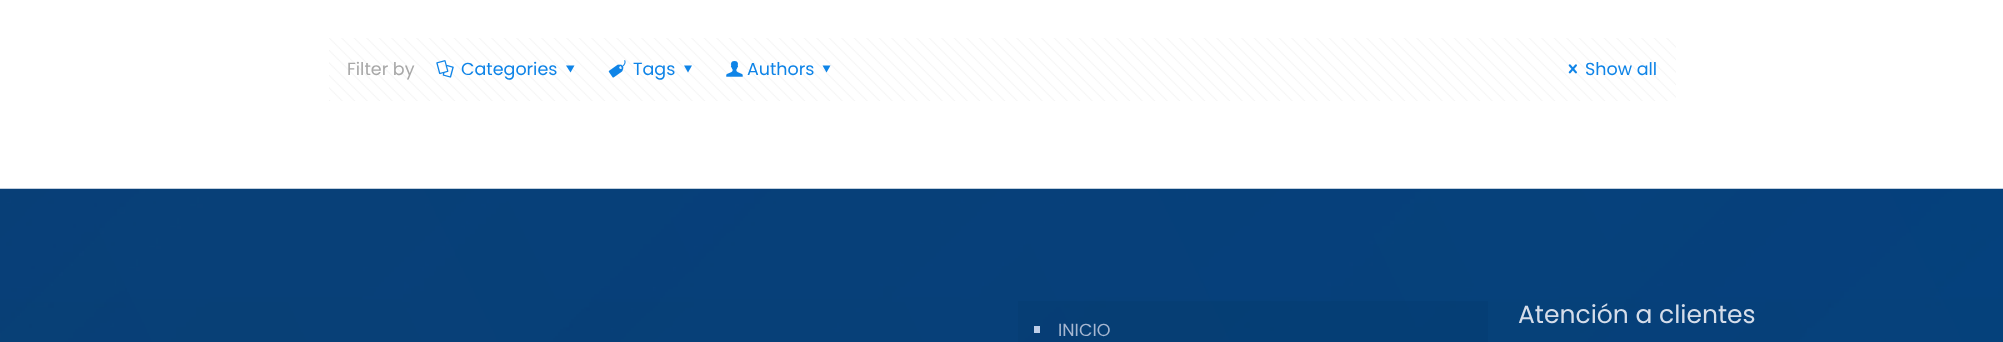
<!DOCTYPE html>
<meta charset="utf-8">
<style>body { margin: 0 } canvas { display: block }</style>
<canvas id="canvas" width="2003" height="342"></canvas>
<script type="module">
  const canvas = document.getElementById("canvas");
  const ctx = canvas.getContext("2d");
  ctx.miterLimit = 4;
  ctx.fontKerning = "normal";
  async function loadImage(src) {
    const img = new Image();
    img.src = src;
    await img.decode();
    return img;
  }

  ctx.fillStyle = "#ffffff";
  ctx.fillRect(0, 0, 2003, 342);
  ctx.drawImage(await loadImage("img1.png"), 329, 38, 1347, 63);
  ctx.font = "17.5px Poppins";
  ctx.fillStyle = "#a8a8a8";
  ctx.fillText("Filter by", 347, 75);
  ctx.drawImage(await loadImage("img2.png"), 436, 60, 18, 18);
  ctx.fillStyle = "#0f84e7";
  ctx.fillText("Categories", 461, 75);
  ctx.beginPath();
  ctx.moveTo(574.5, 65.5);
  ctx.lineTo(570.5, 72.5);
  ctx.lineTo(566, 65.5);
  ctx.closePath();
  ctx.fill();
  ctx.drawImage(await loadImage("img3.png"), 608, 60, 18, 18);
  ctx.fillText("Tags", 633, 75);
  ctx.beginPath();
  ctx.moveTo(692, 65.5);
  ctx.lineTo(688, 72.5);
  ctx.lineTo(684, 65.5);
  ctx.closePath();
  ctx.fill();
  ctx.drawImage(await loadImage("img4.png"), 726, 61, 17, 16);
  ctx.fillText("Authors", 747, 75);
  ctx.beginPath();
  ctx.moveTo(830.5, 65.5);
  ctx.lineTo(826.5, 72.5);
  ctx.lineTo(822.5, 65.5);
  ctx.closePath();
  ctx.fill();
  ctx.drawImage(await loadImage("img5.png"), 1568, 64, 9, 10);
  ctx.fillText("Show all", 1585, 75);
  ctx.drawImage(await loadImage("img6.png"), 0, 188, 2003, 154);
  ctx.font = "25px Poppins";
  ctx.fillStyle = "#d5ddea";
  ctx.fillText("Atención a clientes", 1518, 323);
  ctx.fillStyle = "rgba(0, 0, 0, 0.03)";
  ctx.fillRect(1018, 301, 470, 41);
  ctx.fillStyle = "#becee8";
  ctx.fillRect(1034, 326, 6, 7);
  ctx.font = "17.5px Poppins";
  ctx.fillStyle = "#a6b7d1";
  ctx.fillText("INICIO", 1058, 336);
</script>
